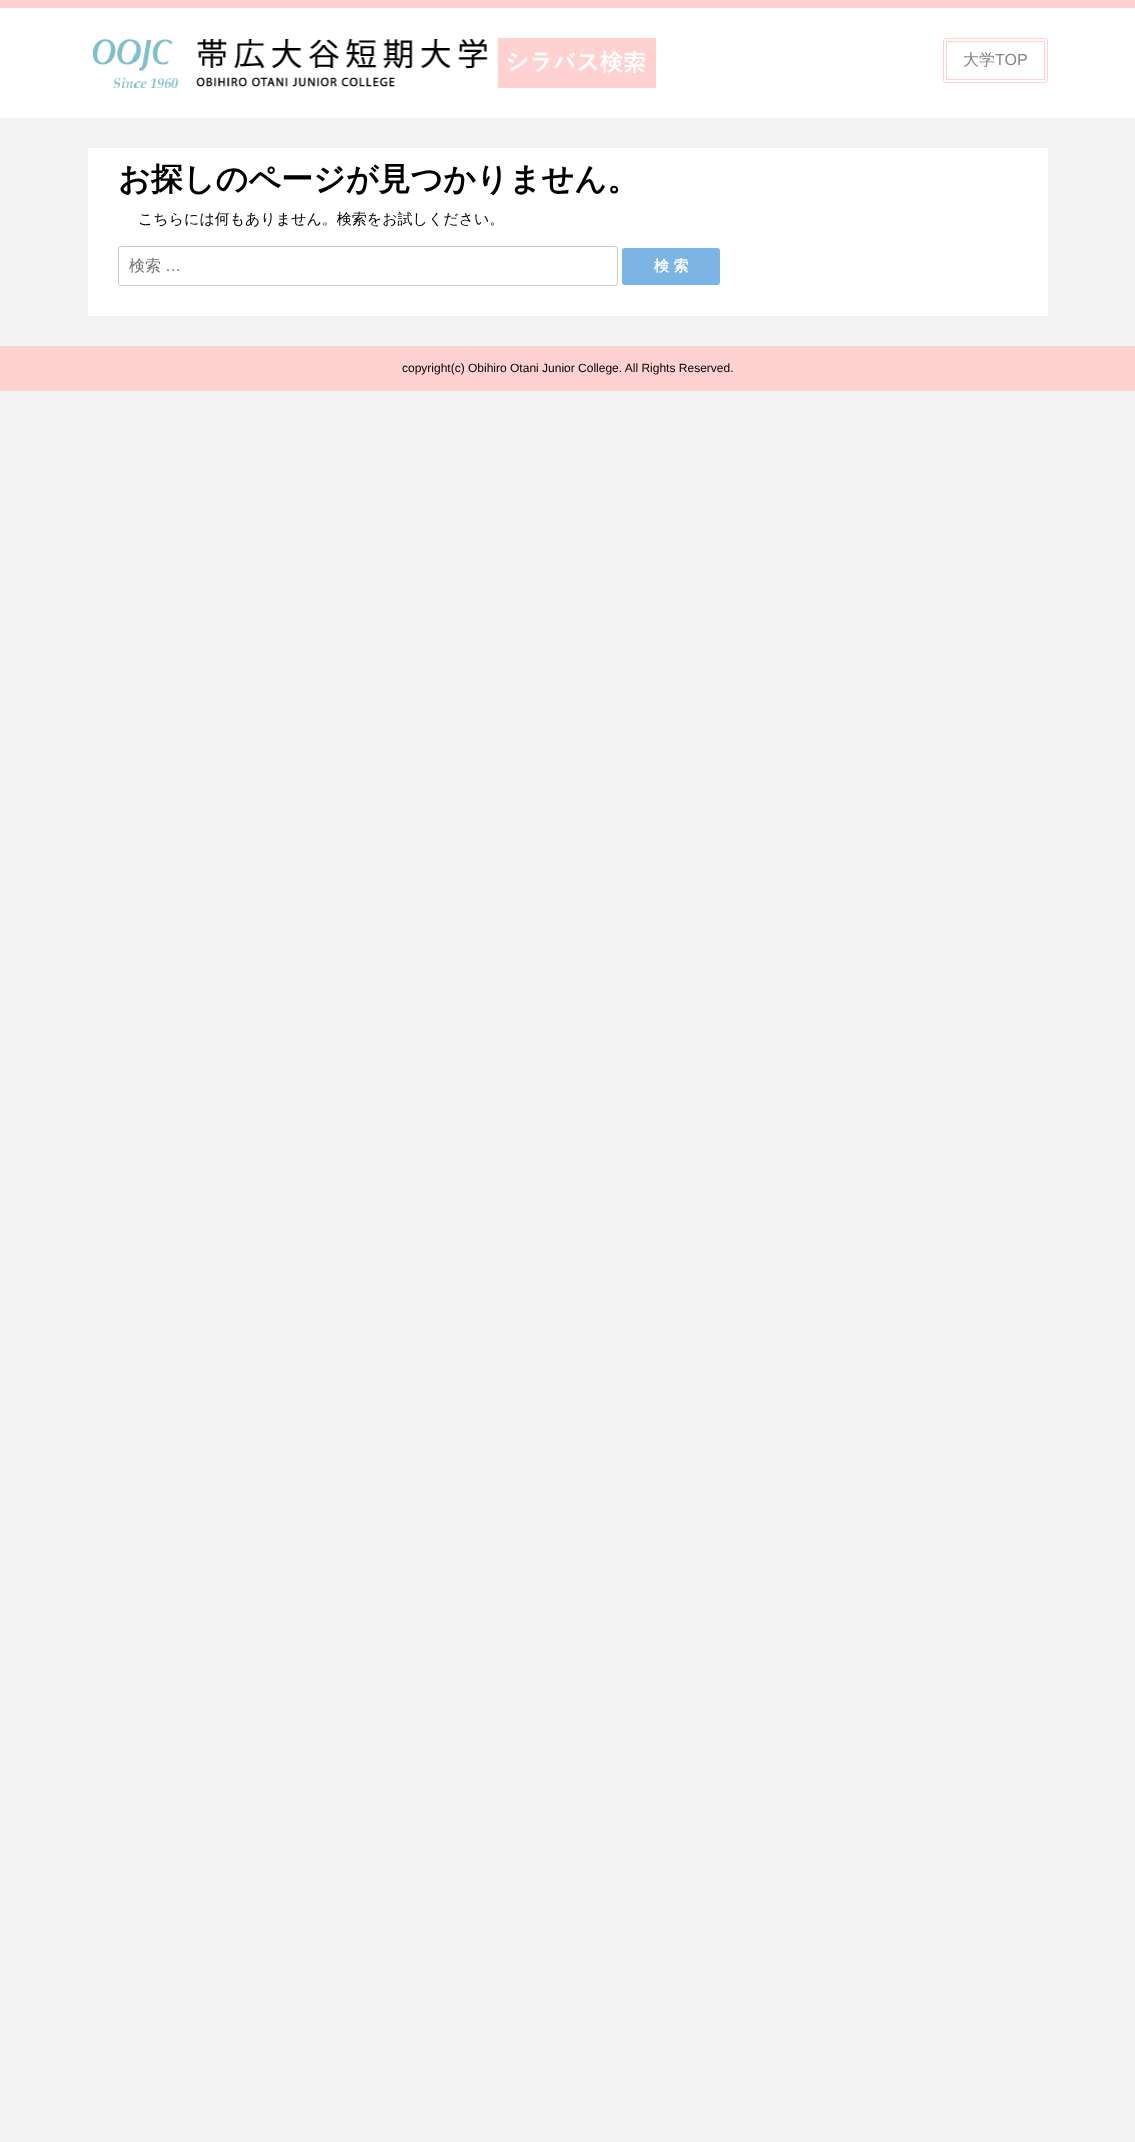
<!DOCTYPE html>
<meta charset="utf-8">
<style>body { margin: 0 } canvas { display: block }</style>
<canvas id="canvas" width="1135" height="2142"></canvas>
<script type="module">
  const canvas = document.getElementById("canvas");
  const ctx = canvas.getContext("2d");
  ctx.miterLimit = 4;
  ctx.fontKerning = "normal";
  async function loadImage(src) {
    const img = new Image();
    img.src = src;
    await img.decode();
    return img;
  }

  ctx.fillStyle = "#f3f3f3";
  ctx.fillRect(0, 0, 1135, 2142);
  ctx.fillStyle = "#ffd1d1";
  ctx.fillRect(0, 0, 1135, 8);
  ctx.fillStyle = "#ffffff";
  ctx.fillRect(0, 8, 1135, 110);
  ctx.drawImage(await loadImage("img1.png"), 93, 38, 563, 50);
  ctx.beginPath();
  ctx.roundRect(943.5, 38.5, 104, 44, 2.5);
  ctx.strokeStyle = "#ffd1d1";
  ctx.stroke();
  ctx.strokeRect(946.5, 41.5, 98, 38);
  ctx.font = "500 16px WenQuanYi Zen Hei";
  ctx.fillStyle = "#868686";
  ctx.fillText("大学", 963, 65);
  ctx.font = "16px Liberation Sans";
  ctx.fillText("TOP", 995, 65);
  ctx.fillStyle = "#ffffff";
  ctx.fillRect(88, 148, 960, 168);
  ctx.font = "bold 32px WenQuanYi Zen Hei";
  ctx.fillStyle = "#000000";
  ctx.fillText("お探しのページが見つかりません。", 118, 190);
  ctx.font = "500 15px WenQuanYi Zen Hei";
  ctx.fillText("こちらには何もありません。検索をお試しください。", 138, 224);
  ctx.beginPath();
  ctx.roundRect(118.5, 246.5, 499, 39, 2.5);
  ctx.strokeStyle = "#cccccc";
  ctx.stroke();
  ctx.font = "500 16px WenQuanYi Zen Hei";
  ctx.fillStyle = "#757575";
  ctx.fillText("検索", 129, 271);
  ctx.font = "16px Liberation Sans";
  ctx.fillText("…", 165, 271);
  ctx.fillStyle = "#7db4e6";
  ctx.beginPath();
  ctx.roundRect(623, 249, 96, 35, 2);
  ctx.fill();
  ctx.strokeStyle = "#7db4e6";
  ctx.lineWidth = 2;
  ctx.stroke();
  ctx.font = "bold 15px WenQuanYi Zen Hei";
  ctx.fillStyle = "#ffffff";
  ctx.fillText("検 索", 654, 271);
  ctx.fillStyle = "#ffd1d1";
  ctx.fillRect(0, 346, 1135, 45);
  ctx.font = "12px Liberation Sans";
  ctx.fillStyle = "#000000";
  ctx.fillText("copyright(c) Obihiro Otani Junior College. All Rights Reserved.", 402, 372);
</script>
